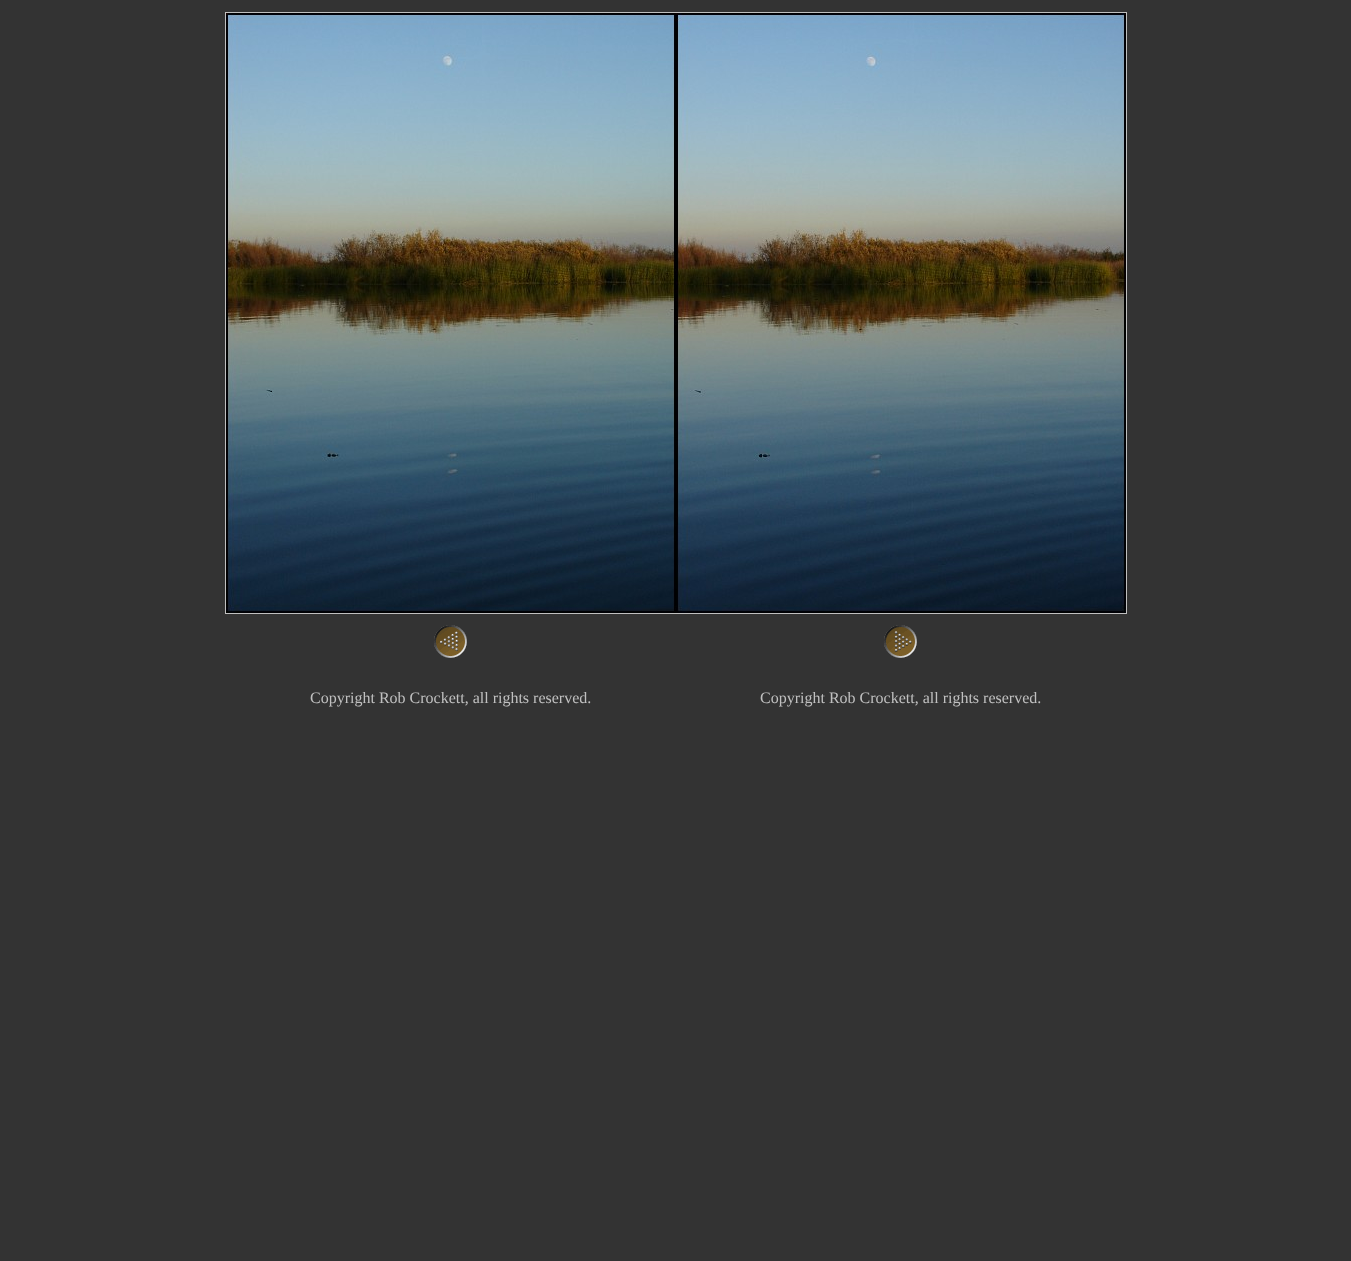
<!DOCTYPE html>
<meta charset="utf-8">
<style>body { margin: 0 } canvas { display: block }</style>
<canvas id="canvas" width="1351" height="1261"></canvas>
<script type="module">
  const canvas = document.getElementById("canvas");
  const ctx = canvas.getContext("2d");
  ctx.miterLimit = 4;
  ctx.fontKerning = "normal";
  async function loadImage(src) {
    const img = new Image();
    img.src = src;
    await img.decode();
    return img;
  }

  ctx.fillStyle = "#333333";
  ctx.fillRect(0, 0, 1351, 1261);
  ctx.strokeStyle = "#c0c0c0";
  ctx.strokeRect(225.5, 12.5, 901, 601);
  ctx.drawImage(await loadImage("img1.png"), 226, 13, 900, 600);
  ctx.drawImage(await loadImage("img2.png"), 434, 625, 33, 33);
  ctx.drawImage(await loadImage("img3.png"), 884, 625, 33, 33);
  ctx.font = "16px Liberation Serif";
  ctx.fillStyle = "#c0c0c0";
  ctx.fillText("Copyright Rob Crockett, all rights reserved.", 310, 703);
  ctx.fillText("Copyright Rob Crockett, all rights reserved.", 760, 703);
</script>
